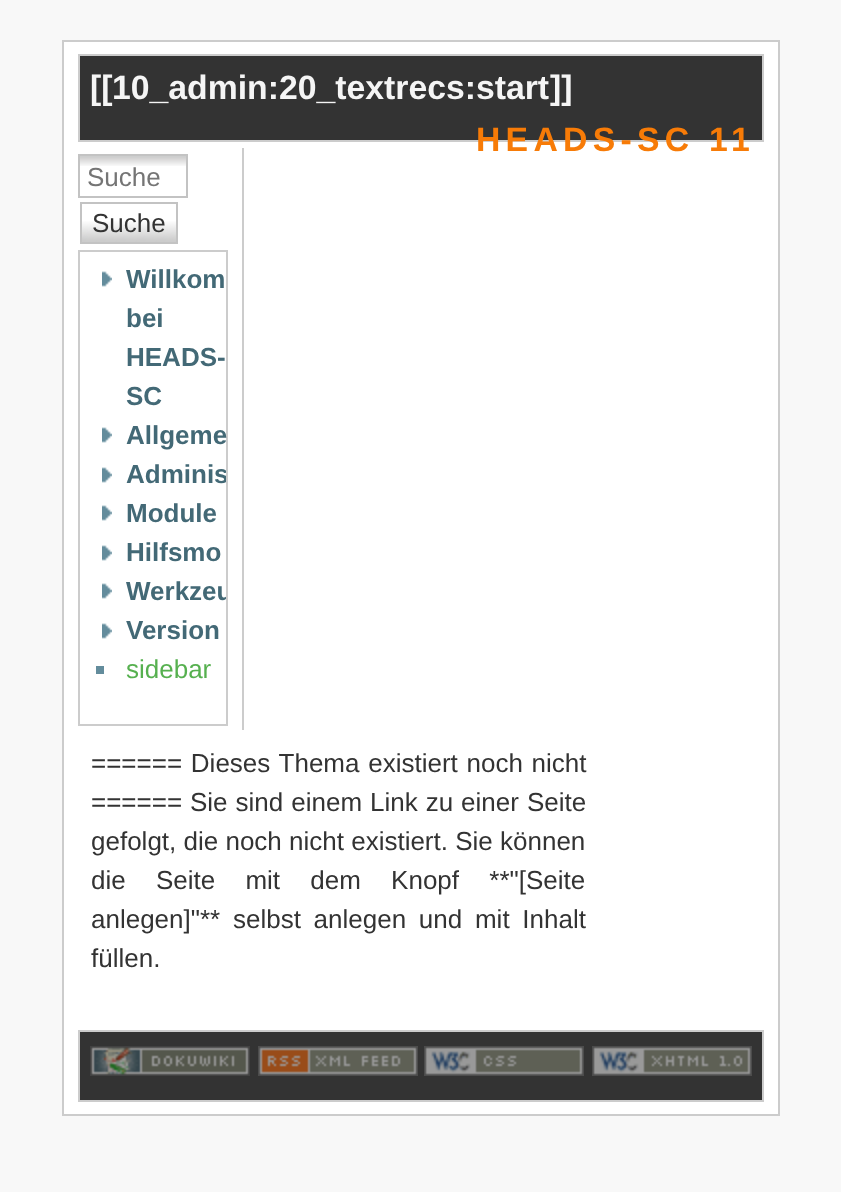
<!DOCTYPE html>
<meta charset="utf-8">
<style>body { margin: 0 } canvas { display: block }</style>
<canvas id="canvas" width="841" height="1192"></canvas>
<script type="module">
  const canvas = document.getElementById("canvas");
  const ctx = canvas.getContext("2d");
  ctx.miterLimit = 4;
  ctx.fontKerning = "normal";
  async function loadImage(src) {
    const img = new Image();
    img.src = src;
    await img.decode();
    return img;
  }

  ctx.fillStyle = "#f8f8f8";
  ctx.fillRect(0, 0, 841, 1192);
  ctx.fillStyle = "#ffffff";
  ctx.beginPath();
  ctx.rect(63, 41, 716, 1074);
  ctx.fill();
  ctx.strokeStyle = "#cccccc";
  ctx.lineWidth = 2;
  ctx.stroke();
  ctx.fillStyle = "#333333";
  ctx.beginPath();
  ctx.rect(79, 55, 684, 86);
  ctx.fill();
  ctx.stroke();
  ctx.font = "bold 33.75px Liberation Sans";
  ctx.fillStyle = "#f5f5f5";
  ctx.fillText("[[", 90, 99);
  ctx.fillText("10_admin:20_textrecs:start", 112, 99);
  ctx.fillText("]]", 550, 99);
  ctx.letterSpacing = "5.25px";
  ctx.fillStyle = "#f77b07";
  ctx.fillText("HEADS-SC 11", 476, 151);
  ctx.fillStyle = "#cccccc";
  ctx.fillRect(242, 148, 2, 582);
  ctx.drawImage(await loadImage("img1.png"), 80, 156, 106, 10);
  ctx.strokeStyle = "#c3c3c3";
  ctx.strokeRect(79, 155, 108, 42);
  ctx.letterSpacing = "0px";
  ctx.font = "26px Liberation Sans";
  ctx.fillStyle = "#757575";
  ctx.fillText("Suche", 87, 186);
  ctx.drawImage(await loadImage("img2.png"), 82, 221, 94, 21);
  ctx.strokeRect(81, 203, 96, 40);
  ctx.fillStyle = "#333333";
  ctx.fillText("Suche", 92, 232);
  ctx.strokeStyle = "#cccccc";
  ctx.strokeRect(79, 251, 148, 474);
  ctx.drawImage(await loadImage("img3.png"), 102, 271, 10, 16);
  ctx.font = "bold 26px Liberation Sans";
  ctx.fillStyle = "#436976";
  ctx.fillText("Willkom", 126, 288);
  ctx.fillText("bei", 126, 327);
  ctx.fillText("HEADS-", 126, 366);
  ctx.fillText("SC", 126, 405);
  ctx.drawImage(await loadImage("img3.png"), 102, 427, 10, 16);
  ctx.fillText("Allgeme", 126, 444);
  ctx.drawImage(await loadImage("img3.png"), 102, 467, 10, 16);
  ctx.save();
  ctx.beginPath();
  ctx.rect(80, 252, 146, 472);
  ctx.clip();
  ctx.fillText("Adminis", 126, 483);
  ctx.restore();
  ctx.drawImage(await loadImage("img3.png"), 102, 505, 10, 16);
  ctx.fillText("Module", 126, 522);
  ctx.drawImage(await loadImage("img3.png"), 102, 545, 10, 16);
  ctx.fillText("Hilfsmo", 126, 561);
  ctx.drawImage(await loadImage("img3.png"), 102, 583, 10, 16);
  ctx.save();
  ctx.beginPath();
  ctx.rect(80, 252, 146, 472);
  ctx.clip();
  ctx.fillText("Werkzeu", 126, 600);
  ctx.restore();
  ctx.drawImage(await loadImage("img3.png"), 102, 623, 10, 16);
  ctx.fillText("Version", 126, 639);
  ctx.fillStyle = "#638c9c";
  ctx.fillRect(96, 666, 8, 8);
  ctx.font = "26px Liberation Sans";
  ctx.fillStyle = "#56b04f";
  ctx.fillText("sidebar", 126, 678);
  ctx.wordSpacing = "1.5px";
  ctx.fillStyle = "#333333";
  ctx.fillText("====== Dieses Thema existiert noch nicht", 91, 772);
  ctx.wordSpacing = "0px";
  ctx.fillText("======", 91, 811);
  ctx.wordSpacing = "0.75px";
  ctx.fillText("Sie sind einem Link zu einer Seite", 190, 811);
  ctx.wordSpacing = "0px";
  ctx.fillText("gefolgt, die noch nicht existiert. Sie können", 91, 850);
  ctx.wordSpacing = "23px";
  ctx.fillText("die Seite mit dem Knopf **\"[Seite", 91, 889);
  ctx.wordSpacing = "5.5px";
  ctx.fillText("anlegen]\"** selbst anlegen und mit Inhalt", 91, 928);
  ctx.wordSpacing = "0px";
  ctx.fillText("füllen.", 91, 967);
  ctx.beginPath();
  ctx.rect(79, 1031, 684, 70);
  ctx.fill();
  ctx.stroke();
  ctx.drawImage(await loadImage("img4.png"), 90, 1046, 160, 30);
  ctx.drawImage(await loadImage("img5.png"), 258, 1046, 160, 30);
  ctx.drawImage(await loadImage("img6.png"), 424, 1046, 160, 30);
  ctx.drawImage(await loadImage("img7.png"), 592, 1046, 160, 30);
</script>
